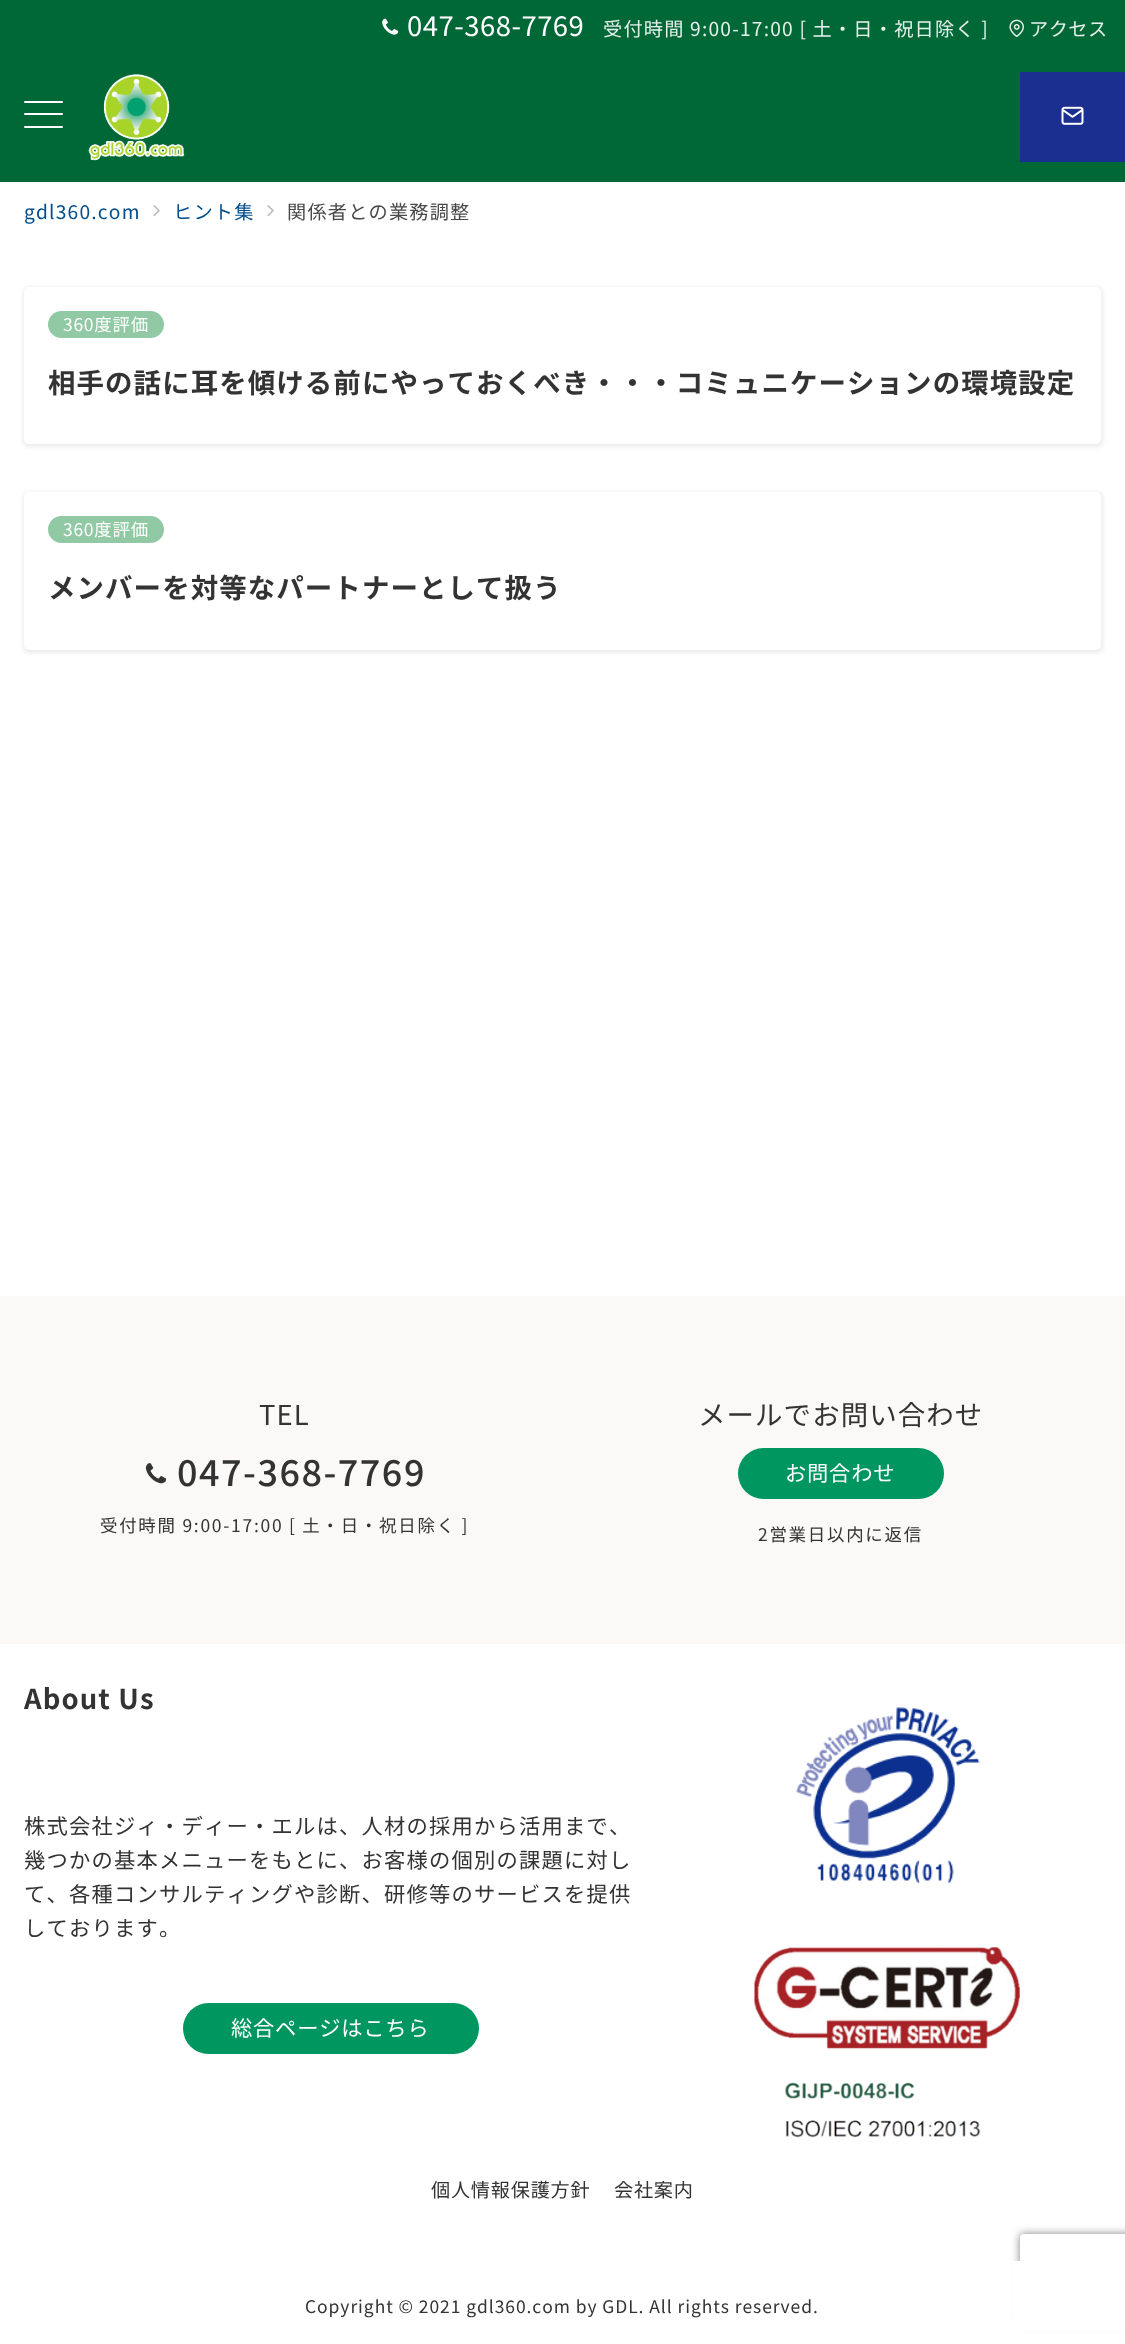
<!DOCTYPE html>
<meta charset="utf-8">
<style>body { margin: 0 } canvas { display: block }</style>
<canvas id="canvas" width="1125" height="2344"></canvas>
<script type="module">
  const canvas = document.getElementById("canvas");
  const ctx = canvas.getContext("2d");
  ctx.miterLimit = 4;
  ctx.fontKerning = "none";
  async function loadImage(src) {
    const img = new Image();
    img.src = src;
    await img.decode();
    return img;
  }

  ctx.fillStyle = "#ffffff";
  ctx.fillRect(0, 0, 1125, 2344);
  ctx.fillStyle = "#006837";
  ctx.fillRect(0, 0, 1125, 182);
  ctx.drawImage(await loadImage("img1.png"), 382, 18, 17, 17);
  ctx.letterSpacing = "0.5px";
  ctx.font = "27.45px Noto Sans JP";
  ctx.fillStyle = "#ffffff";
  ctx.fillText("047-368-7769", 407, 36);
  ctx.letterSpacing = "1.2px";
  ctx.font = "19.2px Noto Sans JP";
  ctx.fillStyle = "#e6f0eb";
  ctx.fillText("受付時間 9:00-17:00 [ 土・日・祝日除く ]", 603, 36);
  ctx.drawImage(await loadImage("img2.png"), 1009, 19, 15, 19);
  ctx.letterSpacing = "0.5px";
  ctx.fillText("アクセス", 1029, 36);
  ctx.fillStyle = "#ffffff";
  ctx.beginPath();
  ctx.roundRect(24, 101, 39, 2, 1);
  ctx.fill();
  ctx.beginPath();
  ctx.roundRect(24, 113, 39, 2, 1);
  ctx.fill();
  ctx.beginPath();
  ctx.roundRect(24, 126, 39, 2, 1);
  ctx.fill();
  ctx.drawImage(await loadImage("img3.png"), 88, 74, 97, 87);
  ctx.fillStyle = "#1b2f90";
  ctx.fillRect(1020, 72, 105, 90);
  ctx.drawImage(await loadImage("img4.png"), 1061, 106, 23, 19);
  ctx.letterSpacing = "1.2px";
  ctx.fillStyle = "#004e8e";
  ctx.fillText("gdl360.com", 24, 219);
  ctx.drawImage(await loadImage("img5.png"), 153, 205, 7, 12);
  ctx.fillText("ヒント集", 173, 219);
  ctx.drawImage(await loadImage("img5.png"), 267, 205, 7, 12);
  ctx.fillStyle = "#484848";
  ctx.fillText("関係者との業務調整", 287, 219);
  ctx.fillStyle = "rgba(0, 0, 0, 0.08)";
  ctx.filter = "blur(2px)";
  ctx.beginPath();
  ctx.roundRect(23, 287, 1080, 160, 6);
  ctx.fill();
  ctx.filter = "none";
  ctx.fillStyle = "#ffffff";
  ctx.beginPath();
  ctx.roundRect(24, 287, 1077, 157, 5);
  ctx.fill();
  ctx.fillStyle = "#91c9a4";
  ctx.beginPath();
  ctx.roundRect(48, 311, 116, 27, 13.5);
  ctx.fill();
  ctx.letterSpacing = "0.75px";
  ctx.font = "17.45px Noto Sans JP";
  ctx.fillStyle = "#ffffff";
  ctx.fillText("360度評価", 63, 331);
  ctx.letterSpacing = "1.1px";
  ctx.font = "bold 27.45px Noto Sans JP";
  ctx.fillStyle = "#333333";
  ctx.fillText("相手の話に耳を傾ける前にやっておくべき・・・コミュニケーションの環境設定", 48, 393);
  ctx.fillStyle = "rgba(0, 0, 0, 0.08)";
  ctx.filter = "blur(2px)";
  ctx.beginPath();
  ctx.roundRect(23, 492, 1080, 161, 6);
  ctx.fill();
  ctx.filter = "none";
  ctx.fillStyle = "#ffffff";
  ctx.beginPath();
  ctx.roundRect(24, 492, 1077, 158, 5);
  ctx.fill();
  ctx.fillStyle = "#91c9a4";
  ctx.beginPath();
  ctx.roundRect(48, 516, 116, 27, 13.5);
  ctx.fill();
  ctx.letterSpacing = "0.75px";
  ctx.font = "17.45px Noto Sans JP";
  ctx.fillStyle = "#ffffff";
  ctx.fillText("360度評価", 63, 536);
  ctx.letterSpacing = "1.1px";
  ctx.font = "bold 27.45px Noto Sans JP";
  ctx.fillStyle = "#333333";
  ctx.fillText("メンバーを対等なパートナーとして扱う", 48, 598);
  ctx.fillStyle = "#faf9f7";
  ctx.fillRect(0, 1296, 1125, 348);
  ctx.font = "27.45px Noto Sans JP";
  ctx.fillStyle = "#333333";
  ctx.fillText("TEL", 259, 1425);
  ctx.drawImage(await loadImage("img6.png"), 145, 1463, 22, 21);
  ctx.letterSpacing = "1.5px";
  ctx.font = "500 36px Noto Sans JP";
  ctx.fillText("047-368-7769", 177, 1486);
  ctx.letterSpacing = "1.75px";
  ctx.font = "17.45px Noto Sans JP";
  ctx.fillText("受付時間 9:00-17:00 [ 土・日・祝日除く ]", 100, 1532);
  ctx.letterSpacing = "1.1px";
  ctx.font = "27.45px Noto Sans JP";
  ctx.fillText("メールでお問い合わせ", 698, 1425);
  ctx.fillStyle = "#00965f";
  ctx.beginPath();
  ctx.roundRect(738, 1448, 206, 51, 25.5);
  ctx.fill();
  ctx.letterSpacing = "0.75px";
  ctx.font = "21.3px Noto Sans JP";
  ctx.fillStyle = "#ffffff";
  ctx.fillText("お問合わせ", 785, 1481);
  ctx.letterSpacing = "1.75px";
  ctx.font = "17.45px Noto Sans JP";
  ctx.fillStyle = "#333333";
  ctx.fillText("2営業日以内に返信", 758, 1541);
  ctx.letterSpacing = "1.1px";
  ctx.font = "bold 27.45px Noto Sans JP";
  ctx.fillText("About Us", 24, 1709);
  ctx.letterSpacing = "1.2px";
  ctx.font = "21.3px Noto Sans JP";
  ctx.fillText("株式会社ジィ・ディー・エルは、人材の採用から活用まで、", 24, 1834);
  ctx.fillText("幾つかの基本メニューをもとに、お客様の個別の課題に対し", 24, 1868);
  ctx.fillText("て、各種コンサルティングや診断、研修等のサービスを提供", 24, 1902);
  ctx.fillText("しております。", 24, 1936);
  ctx.fillStyle = "#00965f";
  ctx.beginPath();
  ctx.roundRect(183, 2003, 296, 51, 25.5);
  ctx.fill();
  ctx.letterSpacing = "0.75px";
  ctx.fillStyle = "#ffffff";
  ctx.fillText("総合ページはこちら", 231, 2036);
  ctx.drawImage(await loadImage("img7.png"), 796, 1707, 184, 177);
  ctx.drawImage(await loadImage("img8.png"), 754, 1947, 266, 191);
  ctx.font = "19.2px Noto Sans JP";
  ctx.fillStyle = "#333333";
  ctx.fillText("個人情報保護方針", 431, 2197);
  ctx.fillText("会社案内", 614, 2197);
  ctx.save();
  ctx.beginPath();
  ctx.moveTo(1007, 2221);
  ctx.lineTo(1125, 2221);
  ctx.lineTo(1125, 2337);
  ctx.lineTo(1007, 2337);
  ctx.closePath();
  ctx.moveTo(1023, 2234);
  ctx.lineTo(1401, 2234);
  ctx.bezierCurveTo(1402.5, 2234, 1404, 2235.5, 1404, 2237);
  ctx.lineTo(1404, 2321);
  ctx.bezierCurveTo(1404, 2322.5, 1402.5, 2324, 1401, 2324);
  ctx.lineTo(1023, 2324);
  ctx.bezierCurveTo(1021.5, 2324, 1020, 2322.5, 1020, 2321);
  ctx.lineTo(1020, 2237);
  ctx.bezierCurveTo(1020, 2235.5, 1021.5, 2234, 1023, 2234);
  ctx.closePath();
  ctx.clip("evenodd");
  ctx.fillStyle = "#808080";
  ctx.filter = "blur(4px)";
  ctx.beginPath();
  ctx.roundRect(1020, 2234, 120, 90, 3);
  ctx.fill();
  ctx.filter = "none";
  ctx.restore();
  ctx.fillStyle = "#ffffff";
  ctx.fillRect(1012, 2261, 113, 71);
  ctx.letterSpacing = "0.95px";
  ctx.font = "17.45px Noto Sans JP";
  ctx.fillStyle = "#333333";
  ctx.fillText("Copyright © 2021 gdl360.com by GDL. All rights reserved.", 305, 2313);
</script>
